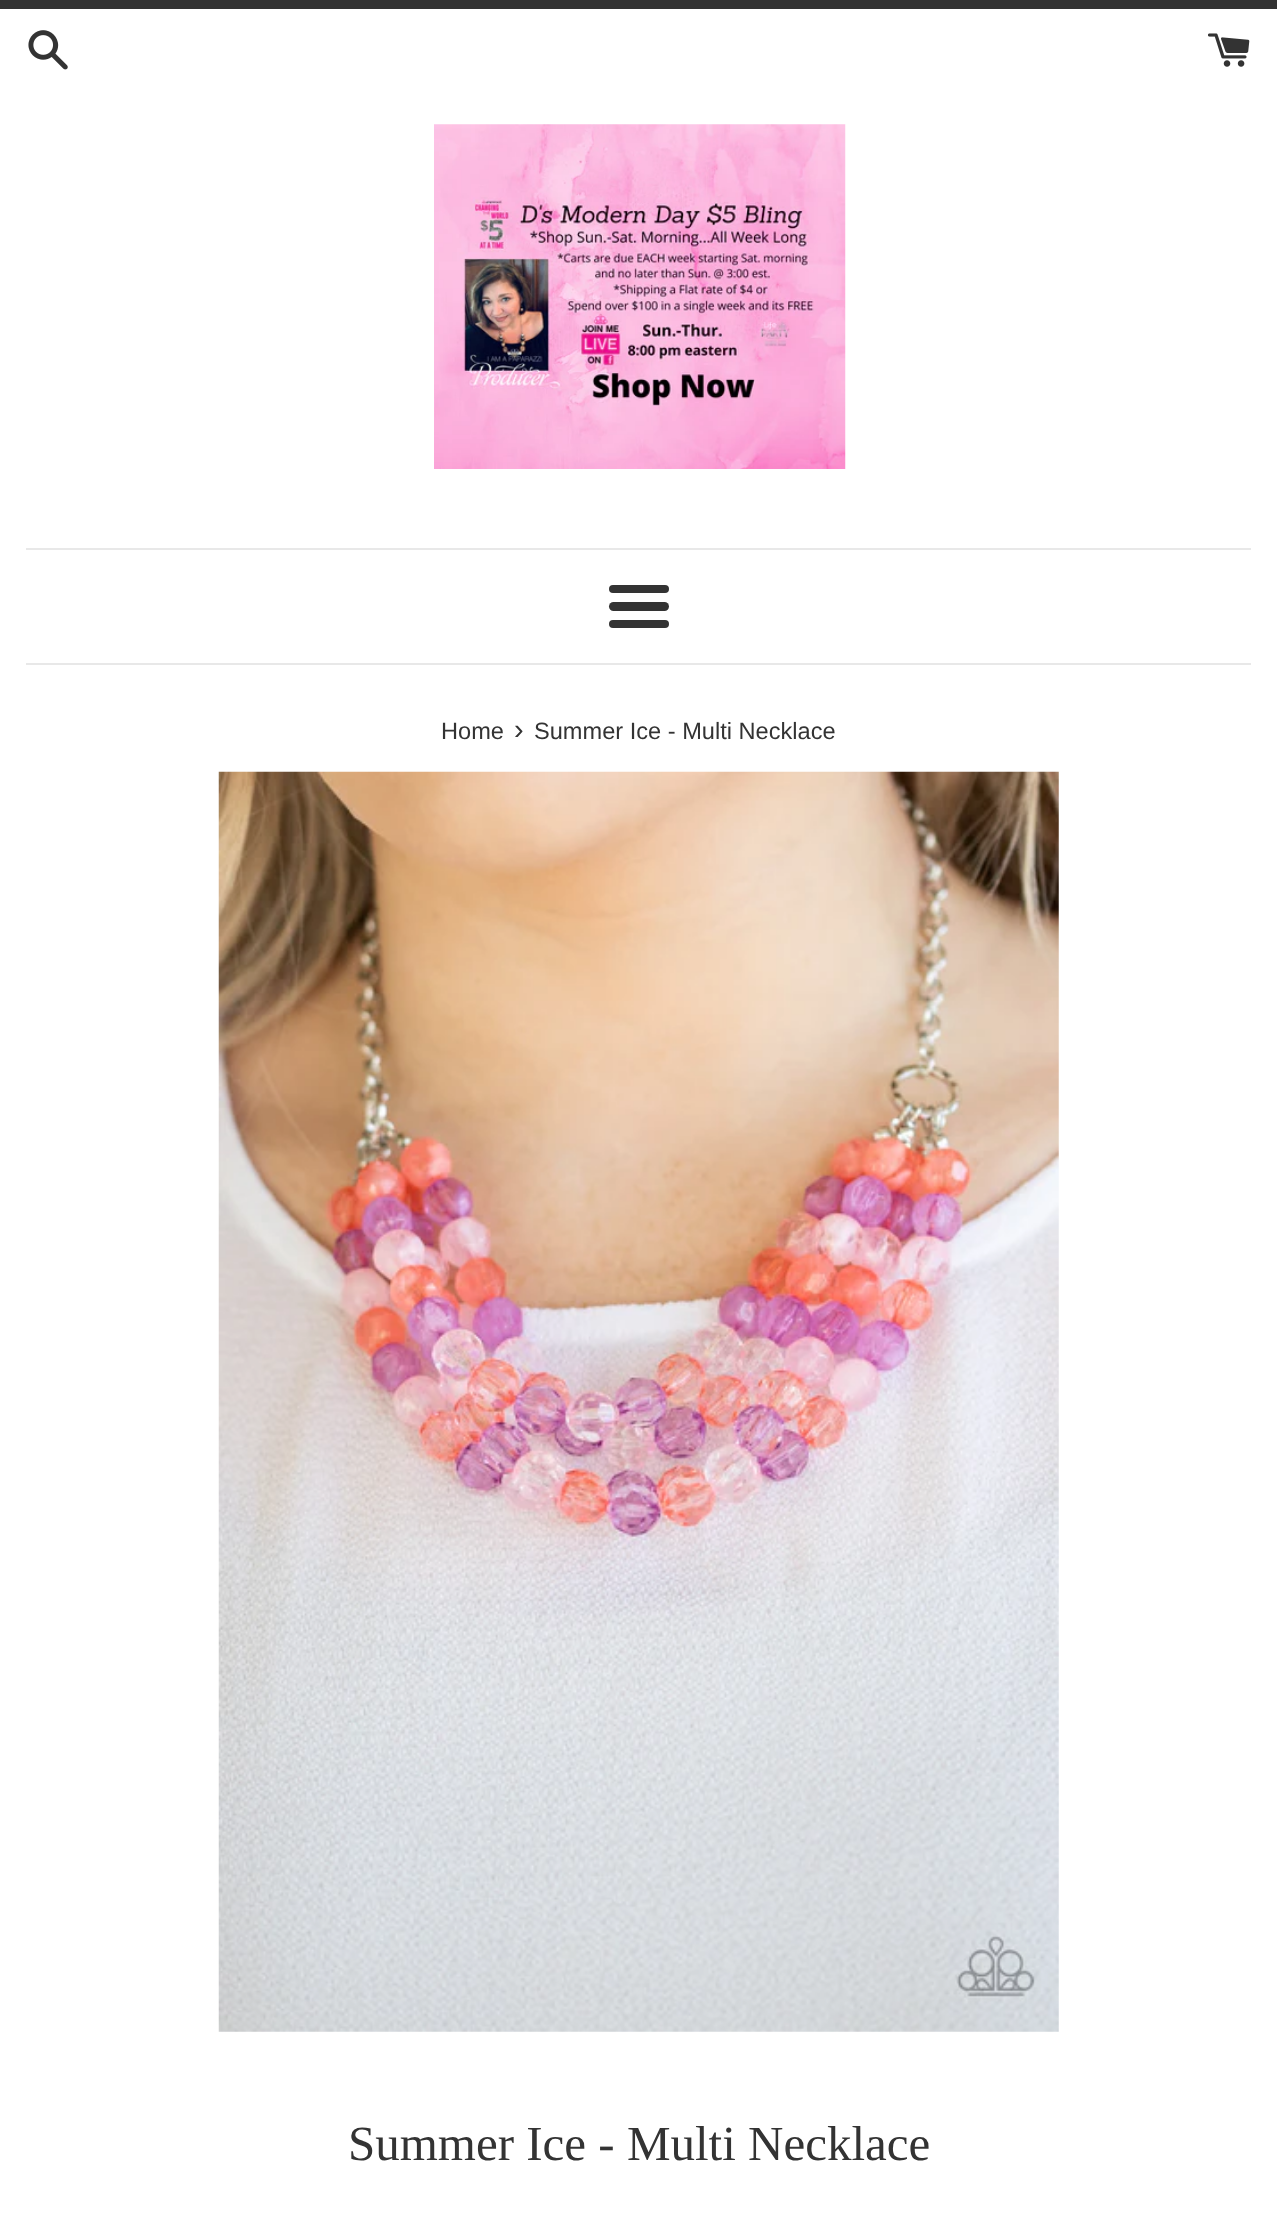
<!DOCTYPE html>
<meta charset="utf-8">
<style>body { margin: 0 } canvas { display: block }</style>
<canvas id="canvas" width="1277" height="2218"></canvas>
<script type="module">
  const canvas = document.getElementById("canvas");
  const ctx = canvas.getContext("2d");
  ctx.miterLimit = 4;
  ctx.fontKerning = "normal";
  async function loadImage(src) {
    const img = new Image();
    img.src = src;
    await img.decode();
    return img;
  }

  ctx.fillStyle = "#ffffff";
  ctx.fillRect(0, 0, 1277, 2218);
  ctx.fillStyle = "#333333";
  ctx.fillRect(0, 0, 1277, 9);
  ctx.drawImage(await loadImage("img1.png"), 28, 30, 40, 40);
  ctx.drawImage(await loadImage("img2.png"), 1208, 33, 42, 34);
  ctx.drawImage(await loadImage("img3.png"), 434, 124, 412, 345);
  ctx.fillStyle = "#e8e8e8";
  ctx.fillRect(26, 548, 1225, 2);
  ctx.fillStyle = "#333333";
  ctx.beginPath();
  ctx.roundRect(609, 585, 60, 8, 4);
  ctx.fill();
  ctx.beginPath();
  ctx.roundRect(609, 602, 60, 9, 4.5);
  ctx.fill();
  ctx.beginPath();
  ctx.roundRect(609, 620, 60, 8, 4);
  ctx.fill();
  ctx.fillStyle = "#e8e8e8";
  ctx.fillRect(26, 663, 1225, 2);
  ctx.font = "23.6px Liberation Sans";
  ctx.fillStyle = "#333333";
  ctx.fillText("Home", 441, 739);
  ctx.font = "29px Liberation Sans";
  ctx.fillText("›", 514, 739);
  ctx.font = "23.6px Liberation Sans";
  ctx.fillText("Summer Ice - Multi Necklace", 534, 739);
  ctx.drawImage(await loadImage("img4.png"), 218, 771, 841, 1261);
  ctx.font = "49px Liberation Serif";
  ctx.fillText("Summer Ice - Multi Necklace", 348, 2160);
</script>
